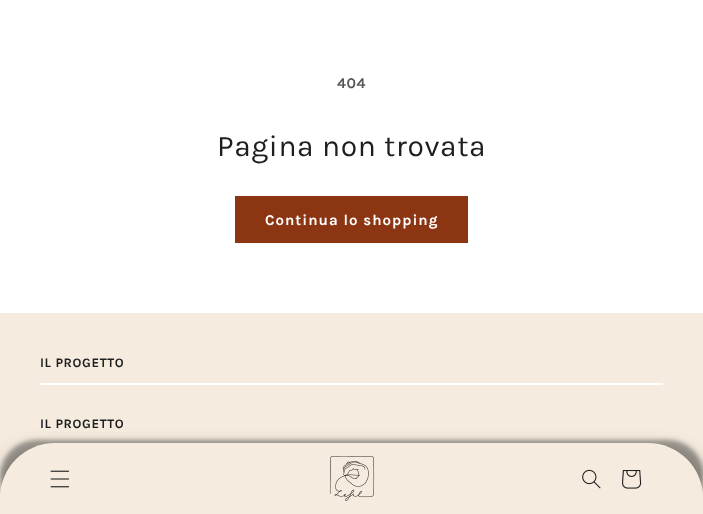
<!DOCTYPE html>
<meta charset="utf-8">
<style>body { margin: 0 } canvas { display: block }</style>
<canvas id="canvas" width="703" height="514"></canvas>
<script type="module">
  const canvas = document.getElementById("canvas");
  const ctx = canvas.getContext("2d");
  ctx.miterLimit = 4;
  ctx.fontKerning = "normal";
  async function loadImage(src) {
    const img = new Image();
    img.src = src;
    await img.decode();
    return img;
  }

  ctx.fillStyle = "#ffffff";
  ctx.fillRect(0, 0, 703, 514);
  ctx.letterSpacing = "0.6px";
  ctx.font = "bold 15px Karla";
  ctx.fillStyle = "#565656";
  ctx.fillText("404", 337, 88);
  ctx.font = "30px Karla";
  ctx.fillStyle = "#1e1e1e";
  ctx.fillText("Pagina non trovata", 217, 156);
  ctx.fillStyle = "#8c3513";
  ctx.fillRect(235, 196, 233, 47);
  ctx.letterSpacing = "1px";
  ctx.font = "bold 15px Karla";
  ctx.fillStyle = "#ffffff";
  ctx.fillText("Continua lo shopping", 265, 225);
  ctx.fillStyle = "#f5ecdf";
  ctx.fillRect(0, 313, 703, 185);
  ctx.letterSpacing = "0.6px";
  ctx.font = "bold 13px Karla";
  ctx.fillStyle = "#1e1e1e";
  ctx.fillText("IL PROGETTO", 40, 367);
  ctx.fillStyle = "#ffffff";
  ctx.fillRect(40, 383, 623, 2);
  ctx.fillStyle = "#1e1e1e";
  ctx.fillText("IL PROGETTO", 40, 428);
  ctx.fillStyle = "rgba(0, 0, 0, 0.09)";
  ctx.filter = "blur(1.5px)";
  ctx.beginPath();
  ctx.roundRect(0, 440, 703, 71, 55);
  ctx.fill();
  ctx.filter = "none";
  ctx.fillStyle = "rgba(0, 0, 0, 0.17)";
  ctx.filter = "blur(10px)";
  ctx.beginPath();
  ctx.roundRect(0, 455, 703, 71, 55);
  ctx.fill();
  ctx.filter = "none";
  ctx.fillStyle = "rgba(0, 0, 0, 0.12)";
  ctx.filter = "blur(10px)";
  ctx.beginPath();
  ctx.roundRect(0, 447, 703, 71, 55);
  ctx.fill();
  ctx.filter = "none";
  ctx.fillStyle = "rgba(0, 0, 0, 0.28)";
  ctx.filter = "blur(2.5px)";
  ctx.beginPath();
  ctx.roundRect(1, 440, 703, 71, 55);
  ctx.fill();
  ctx.filter = "none";
  ctx.fillStyle = "#f5ecdf";
  ctx.beginPath();
  ctx.roundRect(0, 443, 703, 71, [55, 55, 0, 0]);
  ctx.fill();
  ctx.drawImage(await loadImage("img1.png"), 50, 470, 20, 18);
  ctx.drawImage(await loadImage("img2.png"), 329, 456, 46, 45);
  ctx.drawImage(await loadImage("img3.png"), 582, 469, 19, 20);
  ctx.drawImage(await loadImage("img4.png"), 622, 470, 20, 19);
</script>
